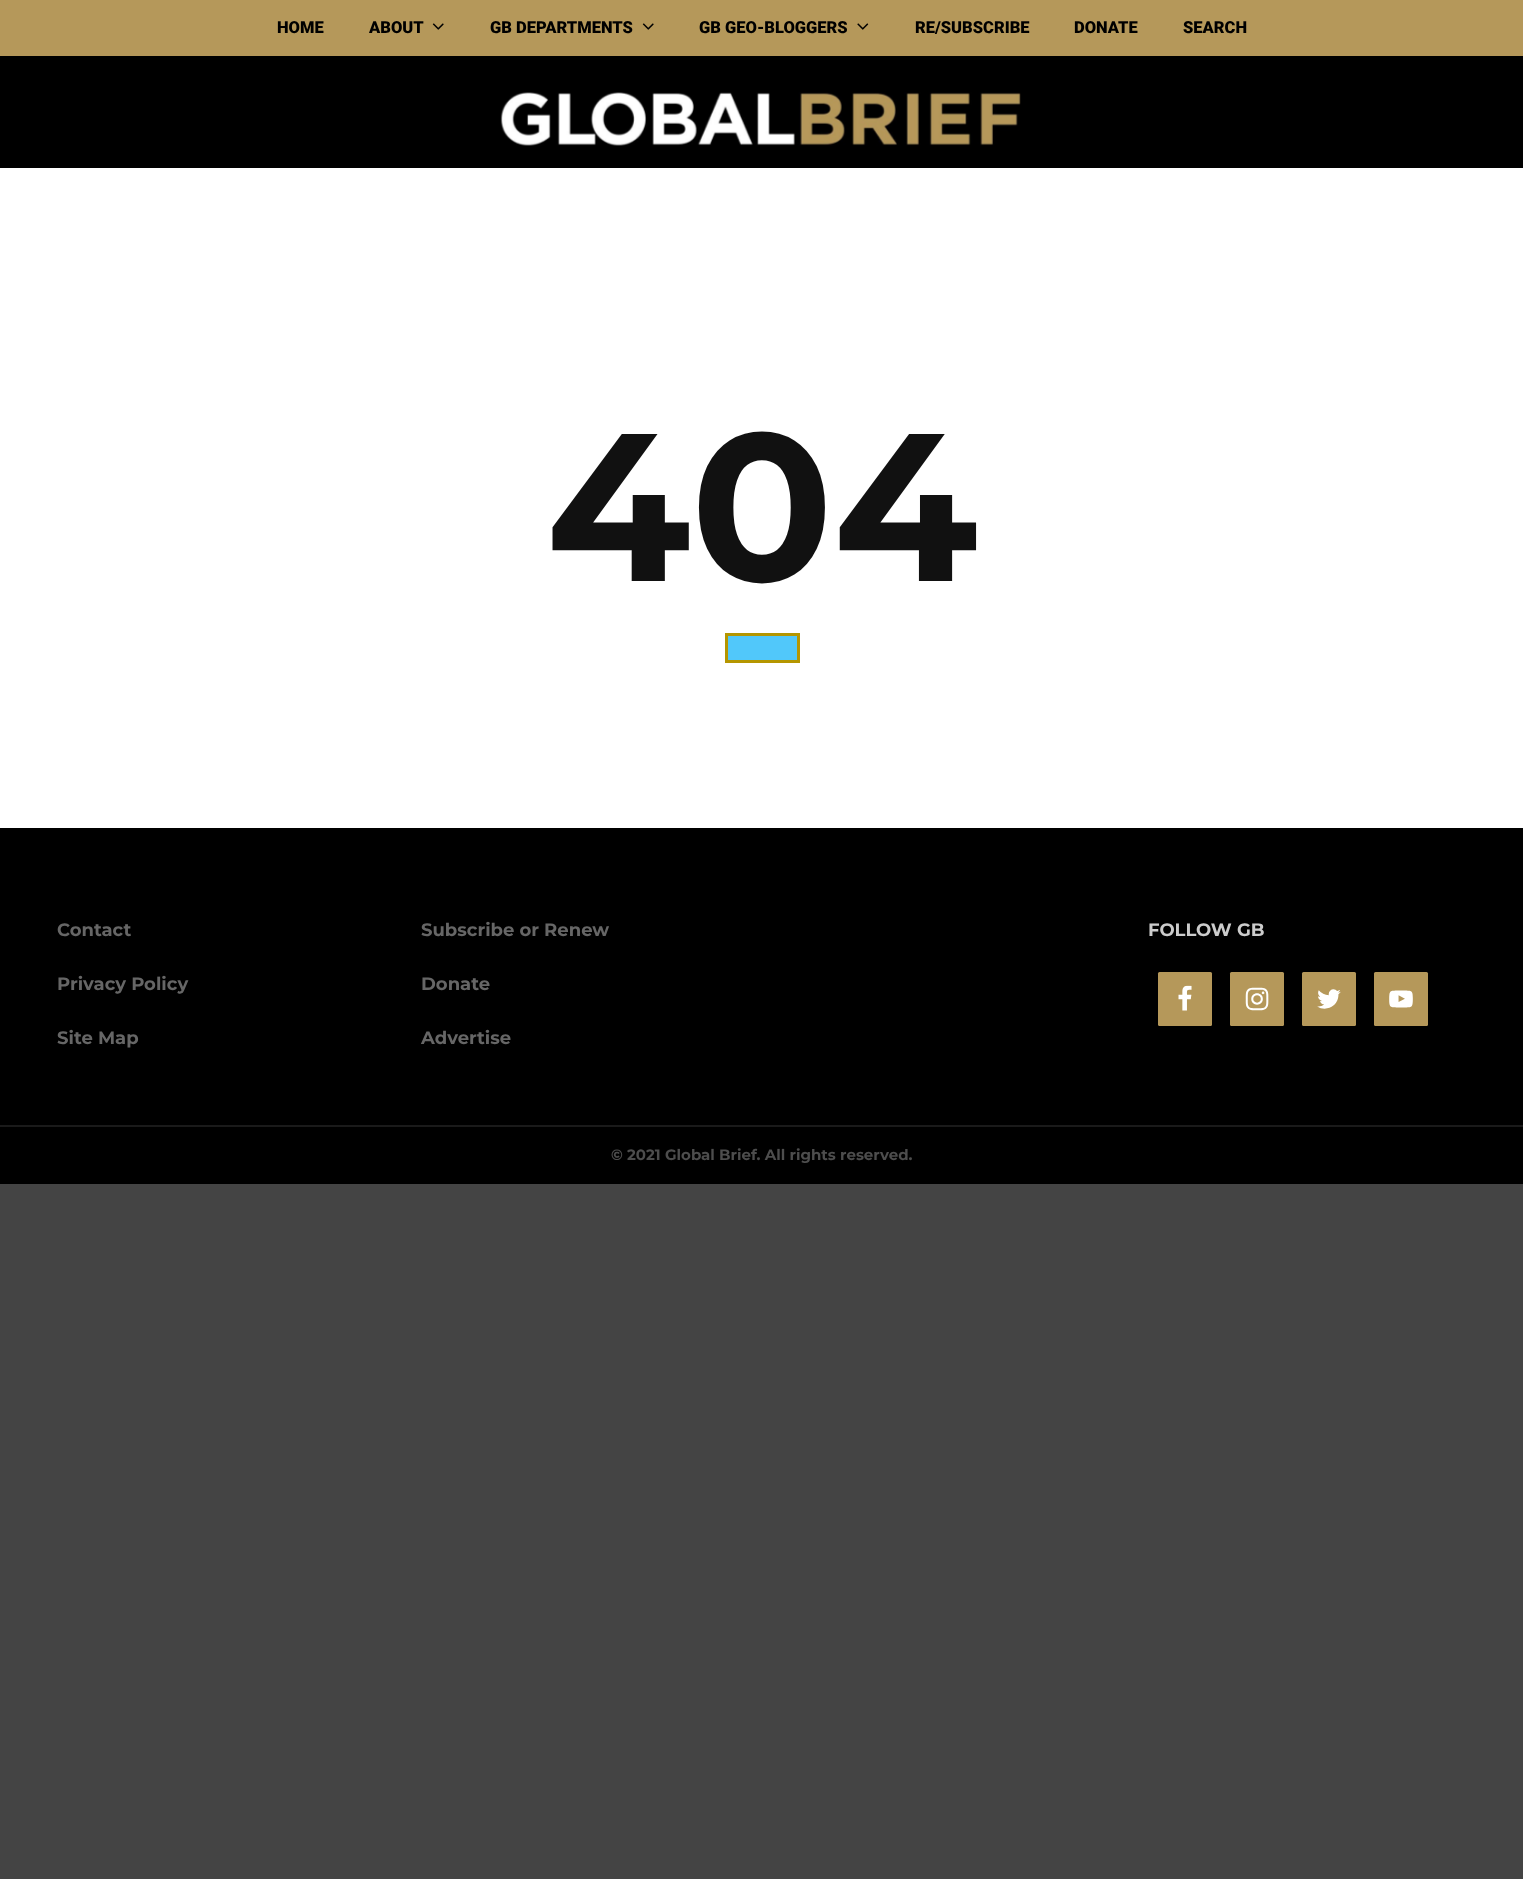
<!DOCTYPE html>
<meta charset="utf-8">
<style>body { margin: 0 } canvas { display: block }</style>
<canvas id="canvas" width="1523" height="1879"></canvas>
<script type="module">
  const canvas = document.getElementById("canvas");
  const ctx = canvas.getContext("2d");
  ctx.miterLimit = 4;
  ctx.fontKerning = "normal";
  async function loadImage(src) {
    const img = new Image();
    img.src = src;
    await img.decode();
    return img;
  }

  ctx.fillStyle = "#444444";
  ctx.fillRect(0, 0, 1523, 1879);
  ctx.fillStyle = "#ffffff";
  ctx.fillRect(0, 168, 1523, 660);
  ctx.fillStyle = "#b5985a";
  ctx.fillRect(0, 0, 1523, 56);
  ctx.font = "900 16.5px Roboto";
  ctx.fillStyle = "#000000";
  ctx.fillText("HOME", 277, 33);
  ctx.fillText("ABOUT", 369, 33);
  ctx.drawImage(await loadImage("img1.png"), 432, 23, 12, 7);
  ctx.fillText("GB DEPARTMENTS", 490, 33);
  ctx.drawImage(await loadImage("img1.png"), 642, 23, 12, 7);
  ctx.fillText("GB GEO-BLOGGERS", 699, 33);
  ctx.drawImage(await loadImage("img2.png"), 857, 23, 12, 7);
  ctx.fillText("RE/SUBSCRIBE", 915, 33);
  ctx.fillText("DONATE", 1074, 33);
  ctx.fillText("SEARCH", 1183, 33);
  ctx.fillRect(0, 56, 1523, 112);
  ctx.drawImage(await loadImage("img3.png"), 500, 92, 521, 54);
  ctx.font = "100 210px Montserrat";
  ctx.fillStyle = "#111111";
  ctx.fillText("404", 546, 581);
  ctx.fillStyle = "#51c8fa";
  ctx.beginPath();
  ctx.rect(726.5, 634.5, 72, 27);
  ctx.fill();
  ctx.strokeStyle = "#b59600";
  ctx.lineWidth = 3;
  ctx.stroke();
  ctx.fillStyle = "#000000";
  ctx.fillRect(0, 828, 1523, 356);
  ctx.font = "100 18px Montserrat";
  ctx.fillStyle = "#666666";
  ctx.fillText("Contact", 57, 936);
  ctx.fillText("Privacy Policy", 57, 990);
  ctx.fillText("Site Map", 57, 1044);
  ctx.fillText("Subscribe or Renew", 421, 936);
  ctx.fillText("Donate", 421, 990);
  ctx.fillText("Advertise", 421, 1044);
  ctx.fillStyle = "#cccccc";
  ctx.fillText("FOLLOW GB", 1148, 936);
  ctx.fillStyle = "#b5985a";
  ctx.beginPath();
  ctx.roundRect(1158, 972, 54, 54, 1.5);
  ctx.fill();
  ctx.drawImage(await loadImage("img4.png"), 1178, 985, 14, 26);
  ctx.beginPath();
  ctx.roundRect(1230, 972, 54, 54, 1.5);
  ctx.fill();
  ctx.drawImage(await loadImage("img5.png"), 1245, 987, 24, 24);
  ctx.beginPath();
  ctx.roundRect(1302, 972, 54, 54, 1.5);
  ctx.fill();
  ctx.drawImage(await loadImage("img6.png"), 1317, 989, 24, 20);
  ctx.beginPath();
  ctx.roundRect(1374, 972, 54, 54, 1.5);
  ctx.fill();
  ctx.drawImage(await loadImage("img7.png"), 1389, 990, 24, 18);
  ctx.fillStyle = "#1a1a1a";
  ctx.fillRect(0, 1125, 1523, 2);
  ctx.font = "100 15px Montserrat";
  ctx.fillStyle = "#4d4d4d";
  ctx.fillText("© 2021 Global Brief. All rights reserved.", 611, 1160);
</script>
